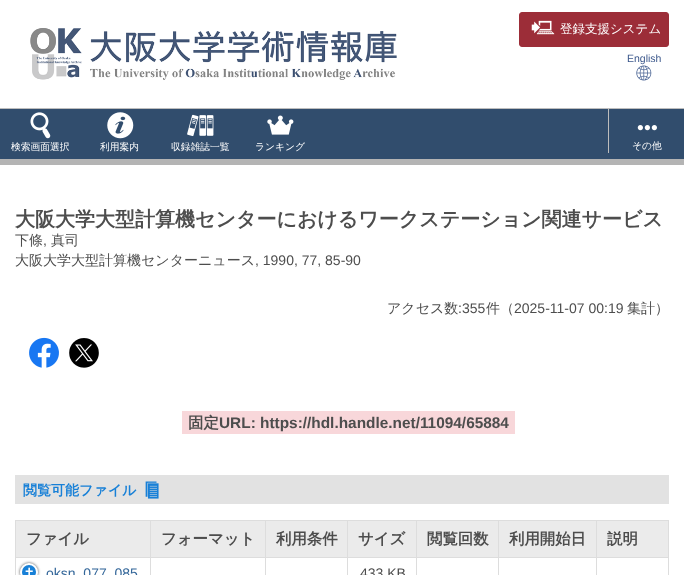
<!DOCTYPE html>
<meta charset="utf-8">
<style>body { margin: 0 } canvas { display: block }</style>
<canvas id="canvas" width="684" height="575"></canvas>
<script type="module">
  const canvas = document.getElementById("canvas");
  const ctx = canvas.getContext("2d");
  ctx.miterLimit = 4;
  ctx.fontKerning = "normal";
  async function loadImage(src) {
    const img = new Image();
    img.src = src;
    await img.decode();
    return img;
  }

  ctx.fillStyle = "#ffffff";
  ctx.fillRect(0, 0, 684, 575);
  ctx.drawImage(await loadImage("img1.png"), 30, 28, 367, 52);
  ctx.fillStyle = "#9c2d38";
  ctx.beginPath();
  ctx.roundRect(519.5, 12.5, 149, 34, 2.5);
  ctx.fill();
  ctx.strokeStyle = "#9c2d38";
  ctx.stroke();
  ctx.drawImage(await loadImage("img2.png"), 531, 20, 24, 15);
  ctx.font = "500 12.5px WenQuanYi Zen Hei";
  ctx.fillStyle = "#ffffff";
  ctx.fillText("登録支援システム", 560, 33);
  ctx.font = "10.5px Liberation Sans";
  ctx.fillStyle = "#3b578b";
  ctx.fillText("English", 627, 62);
  ctx.drawImage(await loadImage("img3.png"), 636, 65, 16, 16);
  ctx.fillStyle = "#314d6d";
  ctx.fillRect(0, 109, 684, 50);
  ctx.fillStyle = "#bdbdbd";
  ctx.fillRect(0, 108, 684, 1);
  ctx.fillStyle = "#b4b4b4";
  ctx.fillRect(0, 159, 684, 6);
  ctx.drawImage(await loadImage("img4.png"), 30, 112, 21, 27);
  ctx.font = "500 9.75px WenQuanYi Zen Hei";
  ctx.fillStyle = "#ffffff";
  ctx.fillText("検索画面選択", 11, 150);
  ctx.drawImage(await loadImage("img5.png"), 107, 112, 27, 27);
  ctx.fillText("利用案内", 100, 150);
  ctx.drawImage(await loadImage("img6.png"), 187, 114, 27, 23);
  ctx.fillText("収録雑誌一覧", 171, 150);
  ctx.drawImage(await loadImage("img7.png"), 267, 115, 27, 20);
  ctx.fillText("ランキング", 255, 150);
  ctx.fillStyle = "#bdbdbd";
  ctx.fillRect(608, 109, 1, 44);
  ctx.drawImage(await loadImage("img8.png"), 637, 125, 20, 6);
  ctx.fillStyle = "#ffffff";
  ctx.fillText("その他", 632, 149);
  ctx.font = "bold 20px WenQuanYi Zen Hei";
  ctx.fillStyle = "#4d4d4d";
  ctx.fillText("大阪大学大型計算機センターにおけるワークステーション関連サービス", 15, 226);
  ctx.font = "500 14px WenQuanYi Zen Hei";
  ctx.fillText("下條", 15, 245);
  ctx.font = "14px Liberation Sans";
  ctx.fillText(",", 43, 245);
  ctx.font = "500 14px WenQuanYi Zen Hei";
  ctx.fillText("真司", 51, 245);
  ctx.fillText("大阪大学大型計算機センターニュース", 15, 265);
  ctx.font = "14px Liberation Sans";
  ctx.fillText(", 1990, 77, 85-90", 255, 265);
  ctx.font = "500 14px WenQuanYi Zen Hei";
  ctx.fillText("アクセス数", 387, 313);
  ctx.font = "14px Liberation Sans";
  ctx.fillText(":355", 458, 313);
  ctx.font = "500 14px WenQuanYi Zen Hei";
  ctx.fillText("件（", 486, 313);
  ctx.font = "14px Liberation Sans";
  ctx.fillText("2025-11-07 00:19", 514, 313);
  ctx.font = "500 14px WenQuanYi Zen Hei";
  ctx.fillText("集計）", 627, 313);
  ctx.drawImage(await loadImage("img9.png"), 29, 337, 30, 31);
  ctx.drawImage(await loadImage("img10.png"), 69, 338, 30, 30);
  ctx.fillStyle = "#f8d7da";
  ctx.fillRect(182, 411, 333, 23);
  ctx.font = "bold 15.4px WenQuanYi Zen Hei";
  ctx.fillStyle = "#4d4d4d";
  ctx.fillText("固定", 188, 428);
  ctx.font = "bold 15.4px Liberation Sans";
  ctx.fillText("URL: https://hdl.handle.net/11094/65884", 219, 428);
  ctx.fillStyle = "#e2e2e2";
  ctx.fillRect(15, 475, 654, 29);
  ctx.font = "bold 14px WenQuanYi Zen Hei";
  ctx.fillStyle = "#1880d7";
  ctx.fillText("閲覧可能ファイル", 23, 495);
  ctx.drawImage(await loadImage("img11.png"), 145, 481, 14, 18);
  ctx.fillStyle = "#ebebeb";
  ctx.fillRect(16, 521, 134, 36);
  ctx.fillStyle = "#dddddd";
  ctx.fillRect(596, 520, 73, 1);
  ctx.fillRect(596, 557, 73, 1);
  ctx.fillRect(596, 557, 1, 18);
  ctx.fillRect(498, 557, 99, 1);
  ctx.fillRect(596, 520, 1, 38);
  ctx.fillRect(498, 520, 99, 1);
  ctx.fillRect(498, 557, 1, 18);
  ctx.fillRect(416, 557, 83, 1);
  ctx.fillRect(498, 520, 1, 38);
  ctx.fillRect(416, 520, 83, 1);
  ctx.fillRect(416, 557, 1, 18);
  ctx.fillRect(347, 557, 70, 1);
  ctx.fillRect(416, 520, 1, 38);
  ctx.fillRect(347, 520, 70, 1);
  ctx.fillRect(347, 557, 1, 18);
  ctx.fillRect(265, 557, 83, 1);
  ctx.fillRect(347, 520, 1, 38);
  ctx.fillRect(265, 520, 83, 1);
  ctx.fillRect(265, 557, 1, 18);
  ctx.fillRect(150, 557, 116, 1);
  ctx.fillRect(265, 520, 1, 38);
  ctx.fillRect(150, 520, 116, 1);
  ctx.fillRect(150, 557, 1, 18);
  ctx.fillRect(15, 557, 136, 1);
  ctx.fillRect(150, 520, 1, 38);
  ctx.fillRect(15, 520, 136, 1);
  ctx.fillRect(15, 557, 1, 18);
  ctx.fillRect(15, 520, 1, 38);
  ctx.font = "bold 15.4px WenQuanYi Zen Hei";
  ctx.fillStyle = "#4d4d4d";
  ctx.fillText("ファイル", 26, 544);
  ctx.fillStyle = "#ebebeb";
  ctx.fillRect(151, 521, 114, 36);
  ctx.fillStyle = "#4d4d4d";
  ctx.fillText("フォーマット", 161, 544);
  ctx.fillStyle = "#ebebeb";
  ctx.fillRect(266, 521, 81, 36);
  ctx.fillStyle = "#4d4d4d";
  ctx.fillText("利用条件", 276, 544);
  ctx.fillStyle = "#ebebeb";
  ctx.fillRect(348, 521, 68, 36);
  ctx.fillStyle = "#4d4d4d";
  ctx.fillText("サイズ", 358, 544);
  ctx.fillStyle = "#ebebeb";
  ctx.fillRect(417, 521, 81, 36);
  ctx.fillStyle = "#4d4d4d";
  ctx.fillText("閲覧回数", 427, 544);
  ctx.fillStyle = "#ebebeb";
  ctx.fillRect(499, 521, 97, 36);
  ctx.fillStyle = "#4d4d4d";
  ctx.fillText("利用開始日", 509, 544);
  ctx.fillStyle = "#ebebeb";
  ctx.fillRect(597, 521, 71, 36);
  ctx.fillStyle = "#dddddd";
  ctx.fillRect(668, 557, 1, 18);
  ctx.fillRect(668, 520, 1, 38);
  ctx.fillStyle = "#4d4d4d";
  ctx.fillText("説明", 607, 544);
  ctx.filter = "blur(1.5px)";
  ctx.beginPath();
  ctx.roundRect(20, 563, 18, 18, 9);
  ctx.fill();
  ctx.filter = "none";
  ctx.fillStyle = "#1880d7";
  ctx.beginPath();
  ctx.arc(29, 572, 8, 0, Math.PI * 2);
  ctx.fill();
  ctx.strokeStyle = "#ffffff";
  ctx.lineWidth = 2;
  ctx.stroke();
  ctx.font = "bold 14px Liberation Mono";
  ctx.fillStyle = "#ffffff";
  ctx.fillText("+", 25, 576);
  ctx.font = "14px Liberation Sans";
  ctx.fillStyle = "#336699";
  ctx.fillText("oksn_077_085", 46, 578);
  ctx.fillStyle = "#4d4d4d";
  ctx.fillText("433 KB", 360, 578);
</script>
